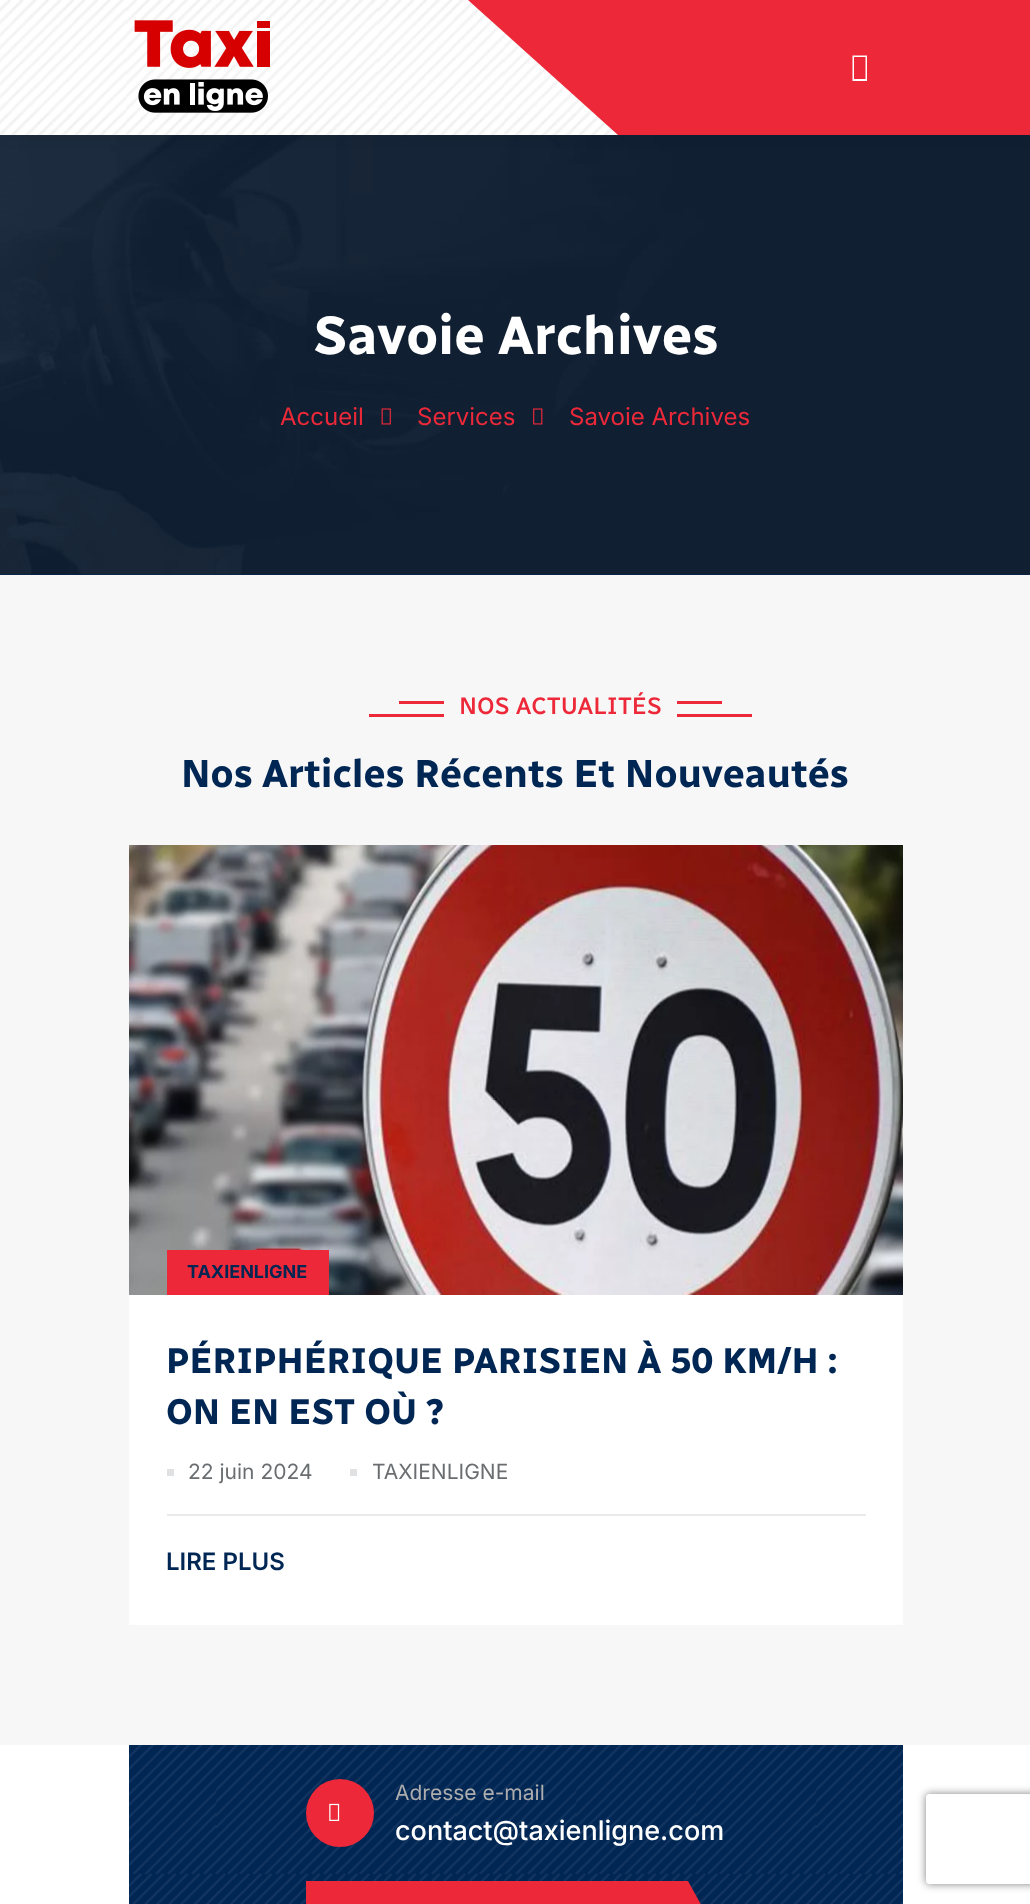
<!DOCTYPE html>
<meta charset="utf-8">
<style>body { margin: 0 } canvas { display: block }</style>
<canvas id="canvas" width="1030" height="1904"></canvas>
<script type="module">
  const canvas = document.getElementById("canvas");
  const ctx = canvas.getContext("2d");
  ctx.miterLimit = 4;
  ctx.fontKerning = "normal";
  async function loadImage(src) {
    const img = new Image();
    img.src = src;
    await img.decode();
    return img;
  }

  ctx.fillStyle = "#ffffff";
  ctx.fillRect(0, 0, 1030, 1904);
  ctx.fillStyle = "#002654";
  ctx.fillRect(0, 574, 1030, 1);
  ctx.drawImage(await loadImage("img3.png"), 0, 135, 1030, 440);
  ctx.fillStyle = "rgba(0, 0, 0, 0.07)";
  ctx.filter = "blur(7.5px)";
  ctx.beginPath();
  ctx.rect(0, 0, 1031, 135);
  ctx.fill();
  ctx.filter = "none";
  ctx.fillStyle = "#ed2939";
  ctx.fillRect(468, 0, 562, 135);
  ctx.fillStyle = "#ffffff";
  ctx.beginPath();
  ctx.moveTo(0, 0);
  ctx.lineTo(0, 135);
  ctx.lineTo(618, 135);
  ctx.lineTo(468, 0);
  ctx.closePath();
  ctx.fill();
  ctx.drawImage(await loadImage("img1.png"), 0, 0, 618, 135);
  ctx.drawImage(await loadImage("img2.png"), 134, 20, 136, 93);
  ctx.beginPath();
  ctx.moveTo(852.5, 81);
  ctx.lineTo(852.5, 55.5);
  ctx.lineTo(867, 55.5);
  ctx.lineTo(867, 81);
  ctx.closePath();
  ctx.moveTo(854, 79);
  ctx.lineTo(865.5, 79);
  ctx.lineTo(865.5, 57);
  ctx.lineTo(854, 57);
  ctx.closePath();
  ctx.fill();
  ctx.font = "bold 54px Radio Canada";
  ctx.fillText("Savoie Archives", 313, 354);
  ctx.font = "24px Inter";
  ctx.fillStyle = "#ed2939";
  ctx.fillText("Accueil", 280, 425);
  ctx.drawImage(await loadImage("img4.png"), 381, 408, 10, 17);
  ctx.fillText("Services", 417, 425);
  ctx.drawImage(await loadImage("img5.png"), 533, 408, 10, 17);
  ctx.fillText("Savoie Archives", 569, 425);
  ctx.fillStyle = "#f7f7f7";
  ctx.fillRect(0, 575, 1030, 1170);
  ctx.fillStyle = "#ed2939";
  ctx.fillRect(399, 701, 45, 3);
  ctx.font = "500 24px Radio Canada";
  ctx.fillText("NOS ACTUALITÉS", 459, 714);
  ctx.fillRect(677, 701, 45, 3);
  ctx.fillRect(677, 714, 75, 3);
  ctx.fillRect(369, 714, 75, 3);
  ctx.font = "bold 39px Radio Canada";
  ctx.fillStyle = "#002654";
  ctx.fillText("Nos Articles Récents Et Nouveautés", 181, 787);
  ctx.fillStyle = "#ffffff";
  ctx.fillRect(129, 1295, 774, 330);
  ctx.drawImage(await loadImage("img6.png"), 129, 845, 774, 450);
  ctx.fillStyle = "#ed2939";
  ctx.fillRect(167, 1250, 162, 45);
  ctx.font = "bold 18px Inter";
  ctx.fillStyle = "#002654";
  ctx.fillText("TAXIENLIGNE", 187, 1278);
  ctx.font = "bold 36px Radio Canada";
  ctx.fillText("PÉRIPHÉRIQUE PARISIEN À 50 KM/H :", 166, 1373);
  ctx.fillText("ON EN EST OÙ ?", 166, 1424);
  ctx.fillStyle = "#eaeaea";
  ctx.fillRect(167, 1514, 699, 2);
  ctx.fillStyle = "#dfe1e2";
  ctx.fillRect(167, 1469, 7, 7);
  ctx.font = "21px Inter";
  ctx.fillStyle = "#6a6e71";
  ctx.fillText("22 juin 2024", 188, 1479);
  ctx.fillStyle = "#dfe1e2";
  ctx.fillRect(350, 1469, 7, 7);
  ctx.fillStyle = "#6a6e71";
  ctx.fillText("TAXIENLIGNE", 372, 1479);
  ctx.font = "600 24px Inter";
  ctx.fillStyle = "#002654";
  ctx.fillText("LIRE PLUS", 166, 1570);
  ctx.fillRect(129, 1745, 774, 159);
  ctx.drawImage(await loadImage("img7.png"), 129, 1745, 774, 159);
  ctx.fillStyle = "#ed2939";
  ctx.beginPath();
  ctx.arc(340, 1813, 34, 0, Math.PI * 2);
  ctx.fill();
  ctx.drawImage(await loadImage("img8.png"), 329, 1803, 11, 18);
  ctx.font = "21px Inter";
  ctx.fillStyle = "#adadad";
  ctx.fillText("Adresse e-mail", 395, 1800);
  ctx.font = "500 27px Inter";
  ctx.fillStyle = "#ffffff";
  ctx.fillText("contact@taxienligne.com", 395, 1840);
  ctx.fillStyle = "#ed2939";
  ctx.beginPath();
  ctx.moveTo(306, 1881);
  ctx.lineTo(306, 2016);
  ctx.lineTo(688, 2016);
  ctx.lineTo(725, 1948);
  ctx.lineTo(688, 1881);
  ctx.closePath();
  ctx.fill();
  ctx.save();
  ctx.beginPath();
  ctx.moveTo(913, 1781);
  ctx.lineTo(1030, 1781);
  ctx.lineTo(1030, 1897);
  ctx.lineTo(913, 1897);
  ctx.closePath();
  ctx.moveTo(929, 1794);
  ctx.lineTo(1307, 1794);
  ctx.bezierCurveTo(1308.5, 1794, 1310, 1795.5, 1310, 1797);
  ctx.lineTo(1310, 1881);
  ctx.bezierCurveTo(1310, 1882.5, 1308.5, 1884, 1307, 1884);
  ctx.lineTo(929, 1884);
  ctx.bezierCurveTo(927.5, 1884, 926, 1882.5, 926, 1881);
  ctx.lineTo(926, 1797);
  ctx.bezierCurveTo(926, 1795.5, 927.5, 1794, 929, 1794);
  ctx.closePath();
  ctx.clip("evenodd");
  ctx.fillStyle = "#808080";
  ctx.filter = "blur(4px)";
  ctx.beginPath();
  ctx.roundRect(926, 1794, 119, 90, 3);
  ctx.fill();
  ctx.filter = "none";
  ctx.restore();
</script>
